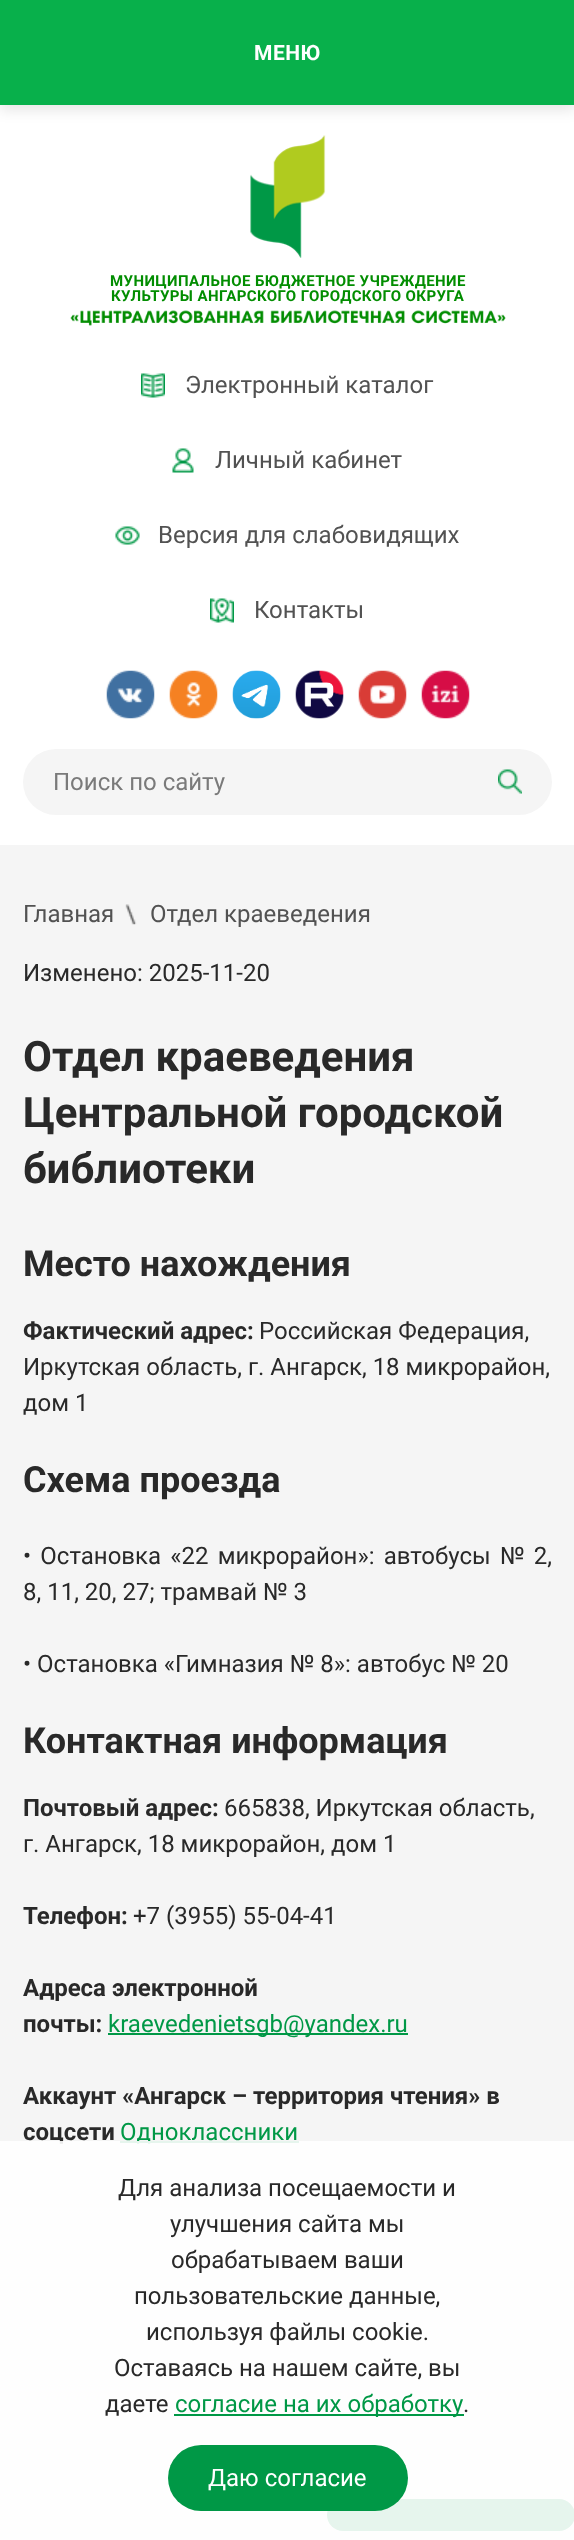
<!DOCTYPE html>
<meta charset="utf-8">
<style>body { margin: 0 } canvas { display: block }</style>
<canvas id="canvas" width="574" height="2540"></canvas>
<script type="module">
  const canvas = document.getElementById("canvas");
  const ctx = canvas.getContext("2d");
  ctx.miterLimit = 4;
  ctx.fontKerning = "normal";
  async function loadImage(src) {
    const img = new Image();
    img.src = src;
    await img.decode();
    return img;
  }

  ctx.fillStyle = "#f5f5f5";
  ctx.fillRect(0, 0, 574, 2540);
  ctx.fillStyle = "#ffffff";
  ctx.fillRect(0, 105, 574, 740);
  ctx.fillStyle = "rgba(0, 0, 0, 0.1)";
  ctx.filter = "blur(7px)";
  ctx.beginPath();
  ctx.rect(0, 5, 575, 105);
  ctx.fill();
  ctx.filter = "none";
  ctx.fillStyle = "#08b04b";
  ctx.fillRect(0, 0, 574, 105);
  ctx.letterSpacing = "0.5px";
  ctx.font = "bold 21px Roboto";
  ctx.fillStyle = "#ffffff";
  ctx.fillText("МЕНЮ", 254, 60);
  ctx.drawImage(await loadImage("img1.png"), 250, 135, 76, 123);
  ctx.letterSpacing = "0.4px";
  ctx.font = "bold 15px Roboto";
  ctx.fillStyle = "#028d01";
  ctx.fillText("МУНИЦИПАЛЬНОЕ БЮДЖЕТНОЕ УЧРЕЖДЕНИЕ", 110, 286);
  ctx.fillText("КУЛЬТУРЫ АНГАРСКОГО ГОРОДСКОГО ОКРУГА", 111, 301);
  ctx.drawImage(await loadImage("img2.png"), 70, 310, 436, 16);
  ctx.drawImage(await loadImage("img3.png"), 141, 373, 24, 25);
  ctx.letterSpacing = "0px";
  ctx.font = "24px Roboto";
  ctx.fillStyle = "#525252";
  ctx.fillText("Электронный каталог", 185, 393);
  ctx.drawImage(await loadImage("img4.png"), 172, 448, 22, 25);
  ctx.fillText("Личный кабинет", 215, 468);
  ctx.drawImage(await loadImage("img5.png"), 115, 526, 25, 19);
  ctx.fillText("Версия для слабовидящих", 158, 543);
  ctx.drawImage(await loadImage("img6.png"), 210, 598, 24, 25);
  ctx.fillText("Контакты", 254, 618);
  ctx.drawImage(await loadImage("img7.png"), 106, 670, 49, 49);
  ctx.drawImage(await loadImage("img8.png"), 169, 670, 49, 49);
  ctx.drawImage(await loadImage("img9.png"), 232, 670, 49, 49);
  ctx.drawImage(await loadImage("img10.png"), 295, 670, 49, 49);
  ctx.drawImage(await loadImage("img11.png"), 358, 670, 49, 49);
  ctx.drawImage(await loadImage("img12.png"), 421, 670, 49, 49);
  ctx.fillStyle = "#f5f5f5";
  ctx.beginPath();
  ctx.roundRect(23, 749, 529, 66, 33);
  ctx.fill();
  ctx.fillStyle = "#7a7a7a";
  ctx.fillText("Поиск по сайту", 53, 790);
  ctx.drawImage(await loadImage("img13.png"), 498, 769, 24, 25);
  ctx.fillStyle = "#525252";
  ctx.fillText("Главная", 23, 922);
  ctx.drawImage(await loadImage("img14.png"), 125, 904, 12, 21);
  ctx.fillText("Отдел краеведения", 150, 922);
  ctx.fillStyle = "#292929";
  ctx.fillText("Изменено: 2025-11-20", 23, 981);
  ctx.font = "bold 42px Roboto";
  ctx.fillText("Отдел краеведения", 23, 1071);
  ctx.fillText("Центральной городской", 23, 1127);
  ctx.fillText("библиотеки", 23, 1183);
  ctx.font = "bold 36px Roboto";
  ctx.fillText("Место нахождения", 23, 1276);
  ctx.font = "bold 24px Roboto";
  ctx.fillText("Фактический адрес:", 23, 1339);
  ctx.font = "24px Roboto";
  ctx.fillText("Российская Федерация,", 259, 1339);
  ctx.fillText("Иркутская область, г. Ангарск, 18 микрорайон,", 23, 1375);
  ctx.fillText("дом 1", 23, 1411);
  ctx.font = "bold 36px Roboto";
  ctx.fillText("Схема проезда", 23, 1492);
  ctx.wordSpacing = "3.25px";
  ctx.font = "24px Roboto";
  ctx.fillText("• Остановка «22 микрорайон»: автобусы № 2,", 23, 1564);
  ctx.wordSpacing = "0px";
  ctx.fillText("8, 11, 20, 27; трамвай № 3", 23, 1600);
  ctx.fillText("• Остановка «Гимназия № 8»: автобус № 20", 23, 1672);
  ctx.font = "bold 36px Roboto";
  ctx.fillText("Контактная информация", 23, 1753);
  ctx.font = "bold 24px Roboto";
  ctx.fillText("Почтовый адрес:", 23, 1816);
  ctx.font = "24px Roboto";
  ctx.fillText("665838, Иркутская область,", 224, 1816);
  ctx.fillText("г. Ангарск, 18 микрорайон, дом 1", 23, 1852);
  ctx.font = "bold 24px Roboto";
  ctx.fillText("Телефон:", 23, 1924);
  ctx.font = "24px Roboto";
  ctx.fillText("+7 (3955) 55-04-41", 133, 1924);
  ctx.font = "bold 24px Roboto";
  ctx.fillText("Адреса электронной", 23, 1996);
  ctx.fillText("почты:", 23, 2032);
  ctx.fillStyle = "#009846";
  ctx.fillRect(108, 2033, 300, 2);
  ctx.font = "24px Roboto";
  ctx.fillText("kraevedenietsgb@yandex.ru", 108, 2032);
  ctx.font = "bold 24px Roboto";
  ctx.fillStyle = "#292929";
  ctx.fillText("Аккаунт «Ангарск – территория чтения» в", 23, 2104);
  ctx.fillText("соцсети", 23, 2140);
  ctx.fillStyle = "#009846";
  ctx.fillRect(120, 2141, 179, 2);
  ctx.font = "24px Roboto";
  ctx.fillText("Одноклассники", 120, 2140);
  ctx.beginPath();
  ctx.roundRect(327, 2499, 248, 32, 16);
  ctx.fill();
  ctx.fillStyle = "rgba(255, 255, 255, 0.9)";
  ctx.fillRect(0, 2141, 574, 399);
  ctx.fillStyle = "#292929";
  ctx.fillText("Для анализа посещаемости и", 118, 2196);
  ctx.fillText("улучшения сайта мы", 170, 2232);
  ctx.fillText("обрабатываем ваши", 171, 2268);
  ctx.fillText("пользовательские данные,", 134, 2304);
  ctx.fillText("используя файлы cookie.", 146, 2340);
  ctx.fillText("Оставаясь на нашем сайте, вы", 114, 2376);
  ctx.fillText("даете", 105, 2412);
  ctx.fillStyle = "#009846";
  ctx.fillRect(174, 2414, 290, 2);
  ctx.fillText("согласие на их обработку", 175, 2412);
  ctx.fillStyle = "#292929";
  ctx.fillText(".", 463, 2412);
  ctx.fillStyle = "#009846";
  ctx.beginPath();
  ctx.roundRect(168, 2445, 240, 66, 33);
  ctx.fill();
  ctx.fillStyle = "#ffffff";
  ctx.fillText("Даю согласие", 208, 2486);
</script>
